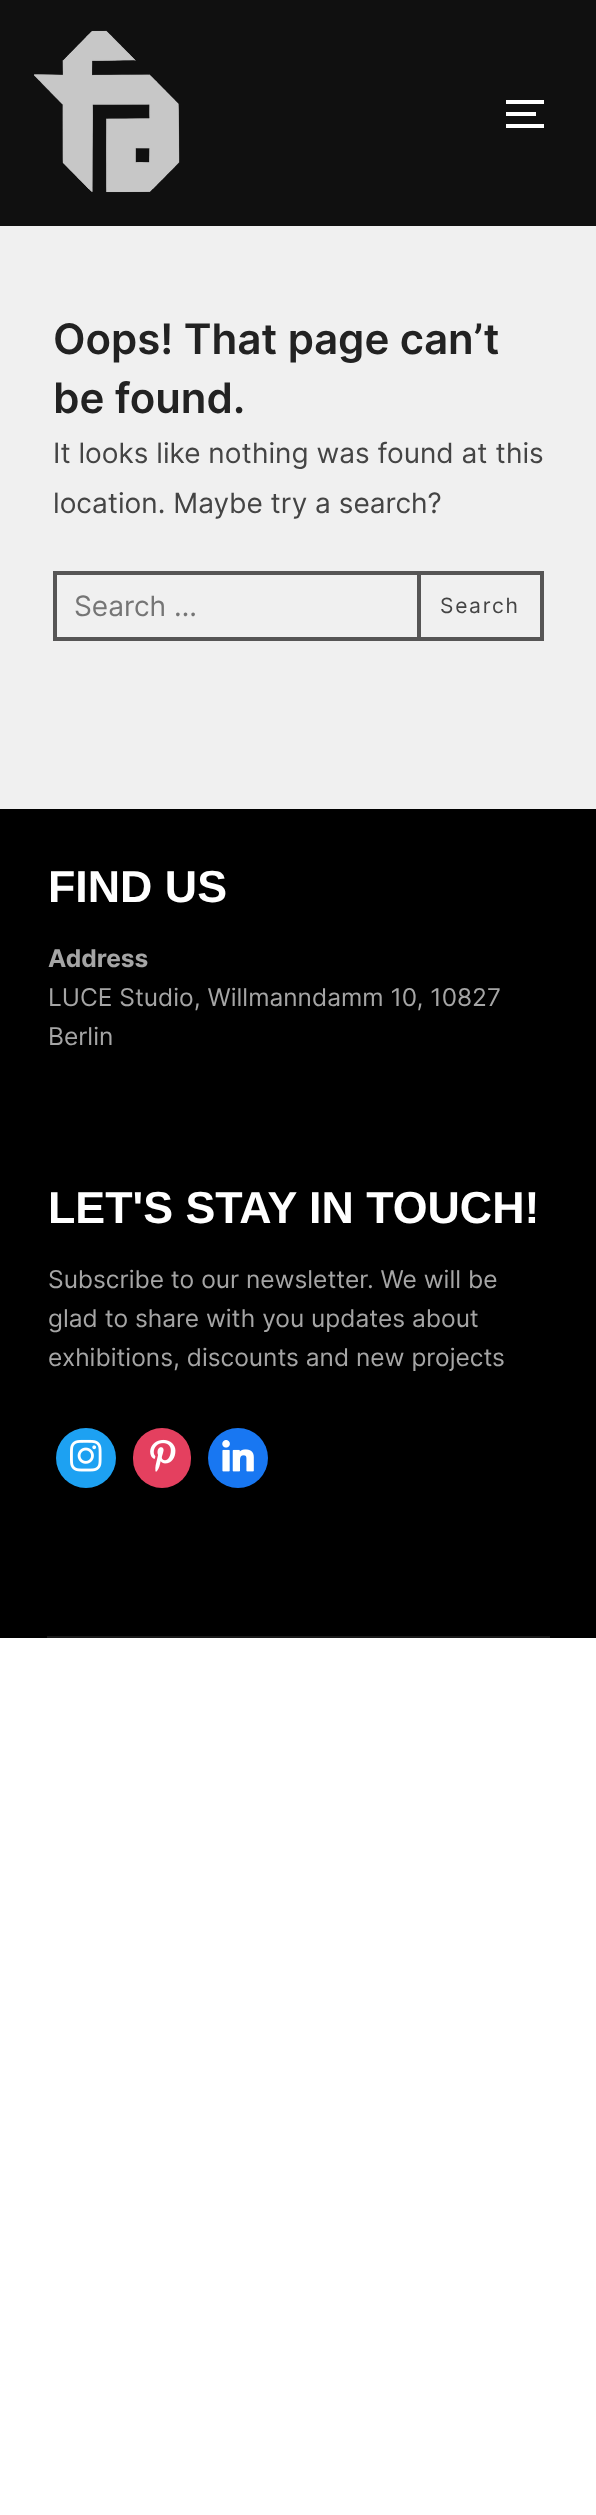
<!DOCTYPE html>
<meta charset="utf-8">
<style>body { margin: 0 } canvas { display: block }</style>
<canvas id="canvas" width="596" height="2515"></canvas>
<script type="module">
  const canvas = document.getElementById("canvas");
  const ctx = canvas.getContext("2d");
  ctx.miterLimit = 4;
  ctx.fontKerning = "normal";
  async function loadImage(src) {
    const img = new Image();
    img.src = src;
    await img.decode();
    return img;
  }

  ctx.fillStyle = "#ffffff";
  ctx.fillRect(0, 0, 596, 2515);
  ctx.fillStyle = "#101010";
  ctx.fillRect(0, 0, 596, 226);
  ctx.drawImage(await loadImage("img1.png"), 34, 30, 146, 163);
  ctx.fillStyle = "#ffffff";
  ctx.fillRect(506, 100, 38, 4);
  ctx.fillRect(506, 112, 30, 4);
  ctx.fillRect(506, 124, 38, 4);
  ctx.fillStyle = "#f0f0f0";
  ctx.fillRect(0, 226, 596, 583);
  ctx.font = "600 42px Inter";
  ctx.fillStyle = "#222222";
  ctx.fillText("Oops! That page can’t", 53, 354);
  ctx.fillText("be found.", 53, 413);
  ctx.font = "28px Inter";
  ctx.fillStyle = "#444444";
  ctx.fillText("It looks like nothing was found at this", 53, 463);
  ctx.fillText("location. Maybe try a search?", 53, 513);
  ctx.strokeStyle = "#565555";
  ctx.lineWidth = 4;
  ctx.strokeRect(55, 573, 487, 66);
  ctx.fillStyle = "#757575";
  ctx.fillText("Search …", 74, 616);
  ctx.strokeRect(419, 573, 123, 66);
  ctx.letterSpacing = "1.75px";
  ctx.font = "21px Inter";
  ctx.fillStyle = "#444444";
  ctx.fillText("Search", 440, 613);
  ctx.fillStyle = "#000000";
  ctx.fillRect(0, 809, 596, 829);
  ctx.letterSpacing = "0px";
  ctx.font = "bold 44.75px Liberation Sans";
  ctx.fillStyle = "#ffffff";
  ctx.fillText("FIND US", 48, 902);
  ctx.font = "bold 24.5px Inter";
  ctx.fillStyle = "#a5a5a5";
  ctx.fillText("Address", 48, 967);
  ctx.font = "24.5px Inter";
  ctx.fillText("LUCE Studio, Willmanndamm 10, 10827", 48, 1006);
  ctx.fillText("Berlin", 48, 1045);
  ctx.font = "bold 44.75px Liberation Sans";
  ctx.fillStyle = "#ffffff";
  ctx.fillText("LET'S STAY IN TOUCH!", 48, 1223);
  ctx.font = "24.5px Inter";
  ctx.fillStyle = "#a5a5a5";
  ctx.fillText("Subscribe to our newsletter. We will be", 48, 1288);
  ctx.fillText("glad to share with you updates about", 48, 1327);
  ctx.fillText("exhibitions, discounts and new projects", 48, 1366);
  ctx.fillStyle = "#1da1f2";
  ctx.beginPath();
  ctx.arc(86, 1458, 30, 0, Math.PI * 2);
  ctx.fill();
  ctx.drawImage(await loadImage("img2.png"), 70, 1439, 32, 33);
  ctx.fillStyle = "#e4405f";
  ctx.beginPath();
  ctx.roundRect(133, 1428, 58, 60, 29);
  ctx.fill();
  ctx.drawImage(await loadImage("img3.png"), 150, 1439, 26, 33);
  ctx.fillStyle = "#1877f2";
  ctx.beginPath();
  ctx.arc(238, 1458, 30, 0, Math.PI * 2);
  ctx.fill();
  ctx.drawImage(await loadImage("img4.png"), 222, 1440, 32, 32);
  ctx.fillStyle = "#1a1a1a";
  ctx.fillRect(47, 1636, 503, 2);
</script>
